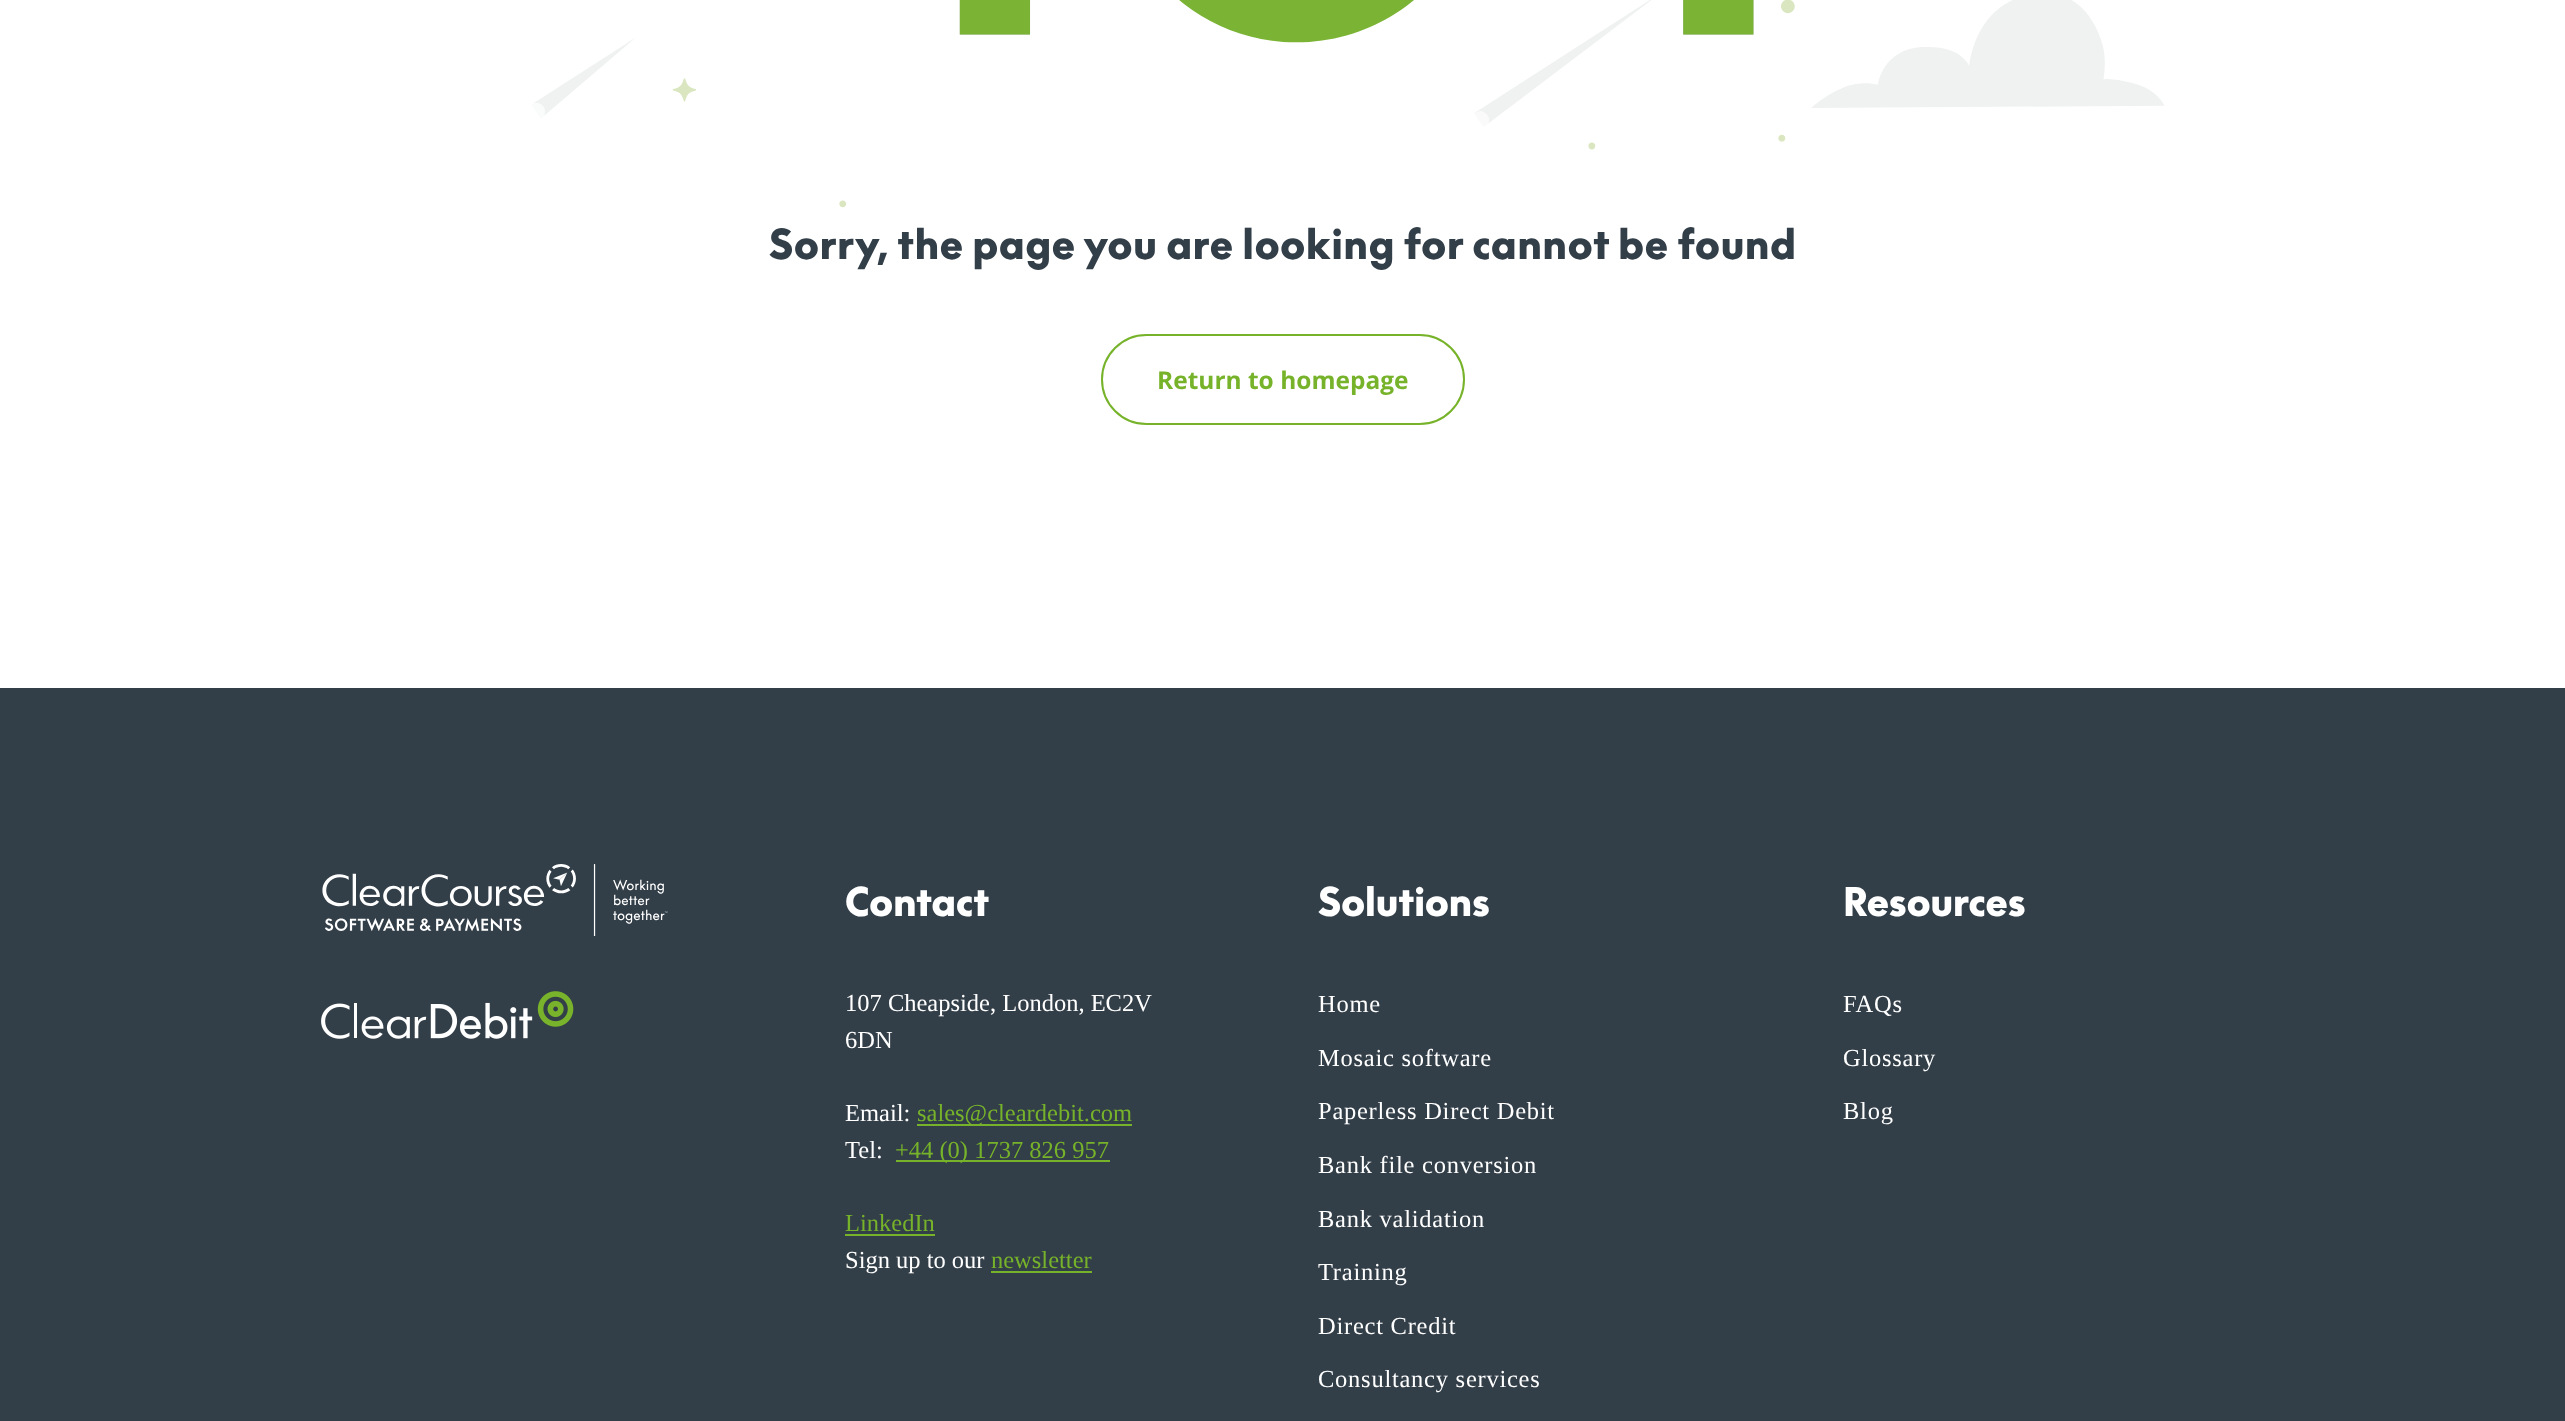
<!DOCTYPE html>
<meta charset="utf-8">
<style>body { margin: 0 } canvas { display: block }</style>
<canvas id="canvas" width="2565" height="1421"></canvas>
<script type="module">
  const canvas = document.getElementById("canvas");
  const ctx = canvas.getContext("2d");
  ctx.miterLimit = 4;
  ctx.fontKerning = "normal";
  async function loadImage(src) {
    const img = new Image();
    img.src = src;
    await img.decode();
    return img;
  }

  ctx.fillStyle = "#ffffff";
  ctx.fillRect(0, 0, 2565, 1421);
  ctx.drawImage(await loadImage("img1.png"), 532, 0, 1632, 208);
  ctx.letterSpacing = "0.8px";
  ctx.font = "900 40.25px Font";
  ctx.fillStyle = "#323e48";
  ctx.fillText("Sorry, the page you are looking for cannot be found", 769, 259);
  ctx.beginPath();
  ctx.roundRect(1102, 335, 362, 89, 44.5);
  ctx.strokeStyle = "#77b32a";
  ctx.lineWidth = 2;
  ctx.stroke();
  ctx.letterSpacing = "0px";
  ctx.font = "bold 24.5px Open Sans";
  ctx.fillStyle = "#77b32a";
  ctx.fillText("Return to homepage", 1157, 389);
  ctx.fillStyle = "#323e48";
  ctx.fillRect(0, 688, 2565, 733);
  ctx.drawImage(await loadImage("img2.png"), 322, 864, 346, 73);
  ctx.drawImage(await loadImage("img3.png"), 321, 991, 253, 48);
  ctx.font = "900 38.5px Font";
  ctx.fillStyle = "#ffffff";
  ctx.fillText("Contact", 845, 916);
  ctx.font = "24.5px Liberation Serif";
  ctx.fillText("107 Cheapside, London, EC2V", 845, 1011);
  ctx.fillText("6DN", 845, 1048);
  ctx.fillText("Email:", 845, 1121);
  ctx.fillStyle = "#77b32a";
  ctx.fillRect(917, 1124, 215, 2);
  ctx.fillText("sales@cleardebit.com", 917, 1121);
  ctx.fillStyle = "#ffffff";
  ctx.fillText("Tel:", 845, 1158);
  ctx.fillStyle = "#77b32a";
  ctx.fillRect(896, 1160, 214, 2);
  ctx.fillText("+44 (0) 1737 826 957", 895, 1158);
  ctx.fillText("LinkedIn", 845, 1231);
  ctx.fillRect(845, 1234, 90, 2);
  ctx.fillStyle = "#ffffff";
  ctx.fillText("Sign up to our", 845, 1268);
  ctx.fillStyle = "#77b32a";
  ctx.fillText("newsletter", 991, 1268);
  ctx.fillRect(991, 1271, 101, 2);
  ctx.font = "900 38.5px Font";
  ctx.fillStyle = "#ffffff";
  ctx.fillText("Solutions", 1318, 916);
  ctx.letterSpacing = "0.75px";
  ctx.font = "24.5px Liberation Serif";
  ctx.fillText("Home", 1318, 1012);
  ctx.fillText("Mosaic software", 1318, 1066);
  ctx.fillText("Paperless Direct Debit", 1318, 1119);
  ctx.fillText("Bank file conversion", 1318, 1173);
  ctx.fillText("Bank validation", 1318, 1227);
  ctx.fillText("Training", 1318, 1280);
  ctx.fillText("Direct Credit", 1318, 1334);
  ctx.fillText("Consultancy services", 1318, 1387);
  ctx.letterSpacing = "0px";
  ctx.font = "900 38.5px Font";
  ctx.fillText("Resources", 1843, 916);
  ctx.letterSpacing = "0.75px";
  ctx.font = "24.5px Liberation Serif";
  ctx.fillText("FAQs", 1843, 1012);
  ctx.fillText("Glossary", 1843, 1066);
  ctx.fillText("Blog", 1843, 1119);
</script>
